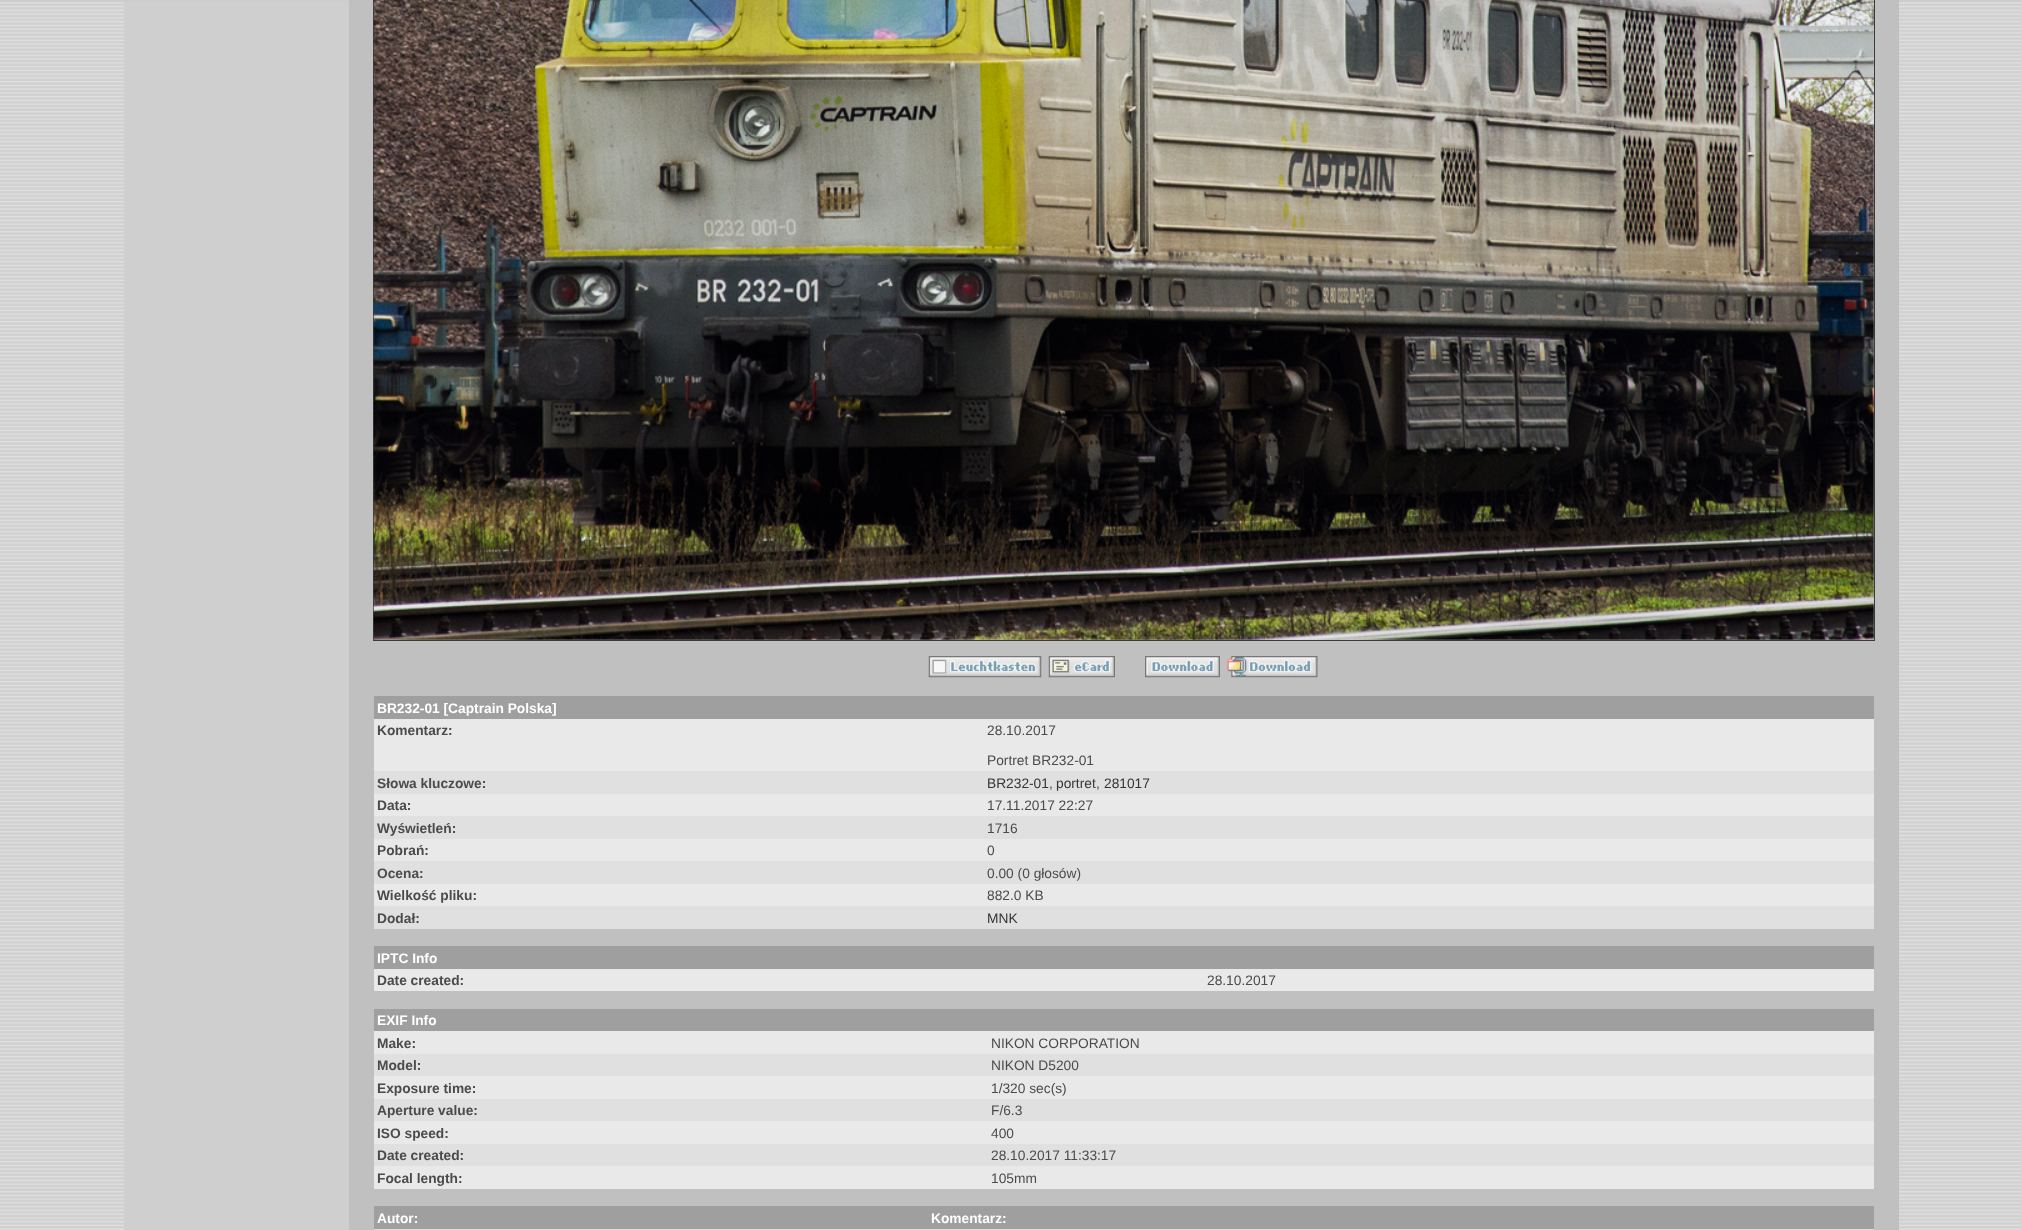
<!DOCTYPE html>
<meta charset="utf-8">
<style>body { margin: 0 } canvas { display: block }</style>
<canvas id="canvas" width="2021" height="1230"></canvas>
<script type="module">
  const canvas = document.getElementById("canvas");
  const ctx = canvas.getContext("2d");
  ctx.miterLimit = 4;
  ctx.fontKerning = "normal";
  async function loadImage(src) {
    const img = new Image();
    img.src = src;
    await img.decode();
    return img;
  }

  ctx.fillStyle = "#cdcdcd";
  ctx.fillRect(0, 0, 2021, 1230);
  ctx.drawImage(await loadImage("img1.png"), 0, 2, 2021, 1228);
  ctx.fillStyle = "#c0c0c0";
  ctx.fillRect(349, 0, 1550, 1230);
  ctx.fillStyle = "#cfcfcf";
  ctx.fillRect(124, 2, 225, 1228);
  ctx.strokeStyle = "#3a3a3a";
  ctx.strokeRect(373.5, -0.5, 1501, 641);
  ctx.drawImage(await loadImage("img2.png"), 373, 0, 1501, 640);
  ctx.drawImage(await loadImage("img3.png"), 928, 656, 114, 22);
  ctx.drawImage(await loadImage("img4.png"), 1048, 656, 67, 22);
  ctx.drawImage(await loadImage("img5.png"), 1145, 656, 75, 22);
  ctx.drawImage(await loadImage("img6.png"), 1227, 656, 91, 22);
  ctx.fillStyle = "#9f9f9f";
  ctx.fillRect(374, 696, 1500, 23);
  ctx.font = "bold 13.75px Liberation Sans";
  ctx.fillStyle = "#ffffff";
  ctx.fillText("BR232-01 [Captrain Polska]", 377, 713);
  ctx.fillStyle = "#e9e9e9";
  ctx.fillRect(374, 719, 1500, 52);
  ctx.fillStyle = "#4b4b4b";
  ctx.fillText("Komentarz:", 377, 735);
  ctx.font = "13.75px Liberation Sans";
  ctx.fillText("28.10.2017", 987, 735);
  ctx.fillText("Portret BR232-01", 987, 765);
  ctx.fillStyle = "#e0e0e0";
  ctx.fillRect(374, 771, 1500, 23);
  ctx.font = "bold 13.75px Liberation Sans";
  ctx.fillStyle = "#4b4b4b";
  ctx.fillText("Słowa kluczowe:", 377, 788);
  ctx.font = "13.75px Liberation Sans";
  ctx.fillStyle = "#353535";
  ctx.fillText("BR232-01", 987, 788);
  ctx.fillStyle = "#4b4b4b";
  ctx.fillText(",", 1049, 788);
  ctx.fillStyle = "#353535";
  ctx.fillText("portret", 1056, 788);
  ctx.fillStyle = "#4b4b4b";
  ctx.fillText(",", 1096, 788);
  ctx.fillStyle = "#353535";
  ctx.fillText("281017", 1104, 788);
  ctx.fillStyle = "#e9e9e9";
  ctx.fillRect(374, 794, 1500, 22);
  ctx.font = "bold 13.75px Liberation Sans";
  ctx.fillStyle = "#4b4b4b";
  ctx.fillText("Data:", 377, 810);
  ctx.font = "13.75px Liberation Sans";
  ctx.fillText("17.11.2017 22:27", 987, 810);
  ctx.fillStyle = "#e0e0e0";
  ctx.fillRect(374, 816, 1500, 23);
  ctx.font = "bold 13.75px Liberation Sans";
  ctx.fillStyle = "#4b4b4b";
  ctx.fillText("Wyświetleń:", 377, 833);
  ctx.font = "13.75px Liberation Sans";
  ctx.fillText("1716", 987, 833);
  ctx.fillStyle = "#e9e9e9";
  ctx.fillRect(374, 839, 1500, 22);
  ctx.font = "bold 13.75px Liberation Sans";
  ctx.fillStyle = "#4b4b4b";
  ctx.fillText("Pobrań:", 377, 855);
  ctx.font = "13.75px Liberation Sans";
  ctx.fillText("0", 987, 855);
  ctx.fillStyle = "#e0e0e0";
  ctx.fillRect(374, 861, 1500, 23);
  ctx.font = "bold 13.75px Liberation Sans";
  ctx.fillStyle = "#4b4b4b";
  ctx.fillText("Ocena:", 377, 878);
  ctx.font = "13.75px Liberation Sans";
  ctx.fillText("0.00 (0 głosów)", 987, 878);
  ctx.fillStyle = "#e9e9e9";
  ctx.fillRect(374, 884, 1500, 22);
  ctx.font = "bold 13.75px Liberation Sans";
  ctx.fillStyle = "#4b4b4b";
  ctx.fillText("Wielkość pliku:", 377, 900);
  ctx.font = "13.75px Liberation Sans";
  ctx.fillText("882.0 KB", 987, 900);
  ctx.fillStyle = "#e0e0e0";
  ctx.fillRect(374, 906, 1500, 23);
  ctx.font = "bold 13.75px Liberation Sans";
  ctx.fillStyle = "#4b4b4b";
  ctx.fillText("Dodał:", 377, 923);
  ctx.font = "13.75px Liberation Sans";
  ctx.fillStyle = "#353535";
  ctx.fillText("MNK", 987, 923);
  ctx.fillStyle = "#9f9f9f";
  ctx.fillRect(374, 946, 1500, 23);
  ctx.font = "bold 13.75px Liberation Sans";
  ctx.fillStyle = "#ffffff";
  ctx.fillText("IPTC Info", 377, 963);
  ctx.fillStyle = "#e9e9e9";
  ctx.fillRect(374, 969, 1500, 22);
  ctx.fillStyle = "#4b4b4b";
  ctx.fillText("Date created:", 377, 985);
  ctx.font = "13.75px Liberation Sans";
  ctx.fillText("28.10.2017", 1207, 985);
  ctx.fillStyle = "#9f9f9f";
  ctx.fillRect(374, 1009, 1500, 22);
  ctx.font = "bold 13.75px Liberation Sans";
  ctx.fillStyle = "#ffffff";
  ctx.fillText("EXIF Info", 377, 1025);
  ctx.fillStyle = "#e9e9e9";
  ctx.fillRect(374, 1031, 1500, 23);
  ctx.fillStyle = "#4b4b4b";
  ctx.fillText("Make:", 377, 1048);
  ctx.font = "13.75px Liberation Sans";
  ctx.fillText("NIKON CORPORATION", 991, 1048);
  ctx.fillStyle = "#e0e0e0";
  ctx.fillRect(374, 1054, 1500, 22);
  ctx.font = "bold 13.75px Liberation Sans";
  ctx.fillStyle = "#4b4b4b";
  ctx.fillText("Model:", 377, 1070);
  ctx.font = "13.75px Liberation Sans";
  ctx.fillText("NIKON D5200", 991, 1070);
  ctx.fillStyle = "#e9e9e9";
  ctx.fillRect(374, 1076, 1500, 23);
  ctx.font = "bold 13.75px Liberation Sans";
  ctx.fillStyle = "#4b4b4b";
  ctx.fillText("Exposure time:", 377, 1093);
  ctx.font = "13.75px Liberation Sans";
  ctx.fillText("1/320 sec(s)", 991, 1093);
  ctx.fillStyle = "#e0e0e0";
  ctx.fillRect(374, 1099, 1500, 22);
  ctx.font = "bold 13.75px Liberation Sans";
  ctx.fillStyle = "#4b4b4b";
  ctx.fillText("Aperture value:", 377, 1115);
  ctx.font = "13.75px Liberation Sans";
  ctx.fillText("F/6.3", 991, 1115);
  ctx.fillStyle = "#e9e9e9";
  ctx.fillRect(374, 1121, 1500, 23);
  ctx.font = "bold 13.75px Liberation Sans";
  ctx.fillStyle = "#4b4b4b";
  ctx.fillText("ISO speed:", 377, 1138);
  ctx.font = "13.75px Liberation Sans";
  ctx.fillText("400", 991, 1138);
  ctx.fillStyle = "#e0e0e0";
  ctx.fillRect(374, 1144, 1500, 22);
  ctx.font = "bold 13.75px Liberation Sans";
  ctx.fillStyle = "#4b4b4b";
  ctx.fillText("Date created:", 377, 1160);
  ctx.font = "13.75px Liberation Sans";
  ctx.fillText("28.10.2017 11:33:17", 991, 1160);
  ctx.fillStyle = "#e9e9e9";
  ctx.fillRect(374, 1166, 1500, 23);
  ctx.font = "bold 13.75px Liberation Sans";
  ctx.fillStyle = "#4b4b4b";
  ctx.fillText("Focal length:", 377, 1183);
  ctx.font = "13.75px Liberation Sans";
  ctx.fillText("105mm", 991, 1183);
  ctx.fillStyle = "#9f9f9f";
  ctx.fillRect(374, 1206, 1500, 23);
  ctx.font = "bold 13.75px Liberation Sans";
  ctx.fillStyle = "#ffffff";
  ctx.fillText("Autor:", 377, 1223);
  ctx.fillText("Komentarz:", 931, 1223);
  ctx.fillStyle = "#e1e1e1";
  ctx.fillRect(374, 1229, 1500, 1);
</script>
